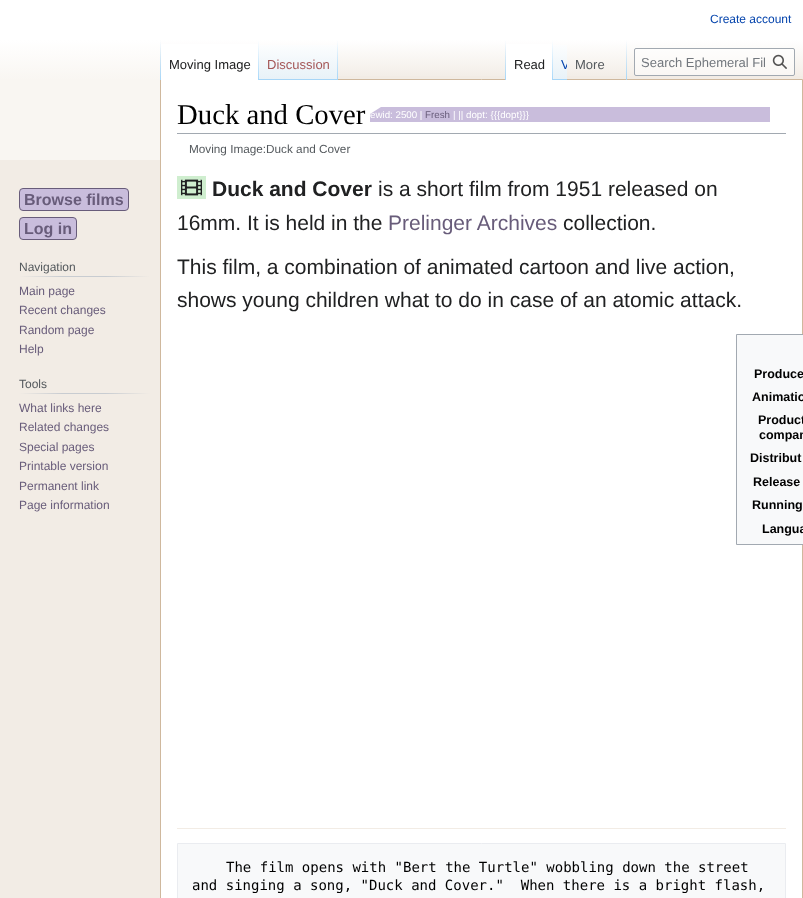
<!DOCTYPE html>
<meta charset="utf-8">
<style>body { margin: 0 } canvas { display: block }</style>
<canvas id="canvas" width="803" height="898"></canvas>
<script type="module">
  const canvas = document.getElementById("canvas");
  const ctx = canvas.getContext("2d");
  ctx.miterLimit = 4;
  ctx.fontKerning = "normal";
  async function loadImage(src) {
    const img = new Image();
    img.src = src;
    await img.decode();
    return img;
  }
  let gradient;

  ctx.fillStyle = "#f2ece5";
  ctx.fillRect(0, 0, 803, 898);
  ctx.fillStyle = "#f9f6f2";
  ctx.fillRect(0, 80, 160, 80);
  gradient = ctx.createLinearGradient(402, 0, 402, 80);
  gradient.addColorStop(0.5, "#ffffff");
  gradient.addColorStop(1, "#f2ece5");
  ctx.fillStyle = gradient;
  ctx.fillRect(160, 0, 643, 76);
  gradient = ctx.createLinearGradient(402, 0, 402, 80);
  gradient.addColorStop(0.5, "#ffffff");
  gradient.addColorStop(1, "#f9f6f2");
  ctx.fillStyle = gradient;
  ctx.fillRect(0, 0, 160, 80);
  ctx.font = "12px Liberation Sans";
  ctx.fillStyle = "#0645ad";
  ctx.fillText("Create account", 710, 23);
  ctx.fillStyle = "#ffffff";
  ctx.beginPath();
  ctx.rect(160.5, 79.5, 642, 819);
  ctx.fill();
  ctx.strokeStyle = "#cfb89d";
  ctx.stroke();
  gradient = ctx.createLinearGradient(161, 40, 161, 80);
  gradient.addColorStop(0, "rgba(167, 215, 249, 0)");
  gradient.addColorStop(1, "#a7d7f9");
  ctx.fillStyle = gradient;
  ctx.fillRect(160, 40, 1, 40);
  ctx.fillStyle = "#ffffff";
  ctx.fillRect(161, 44, 97, 36);
  gradient = ctx.createLinearGradient(259, 40, 259, 80);
  gradient.addColorStop(0, "#ffffff");
  gradient.addColorStop(1, "#a7d7f9");
  ctx.fillStyle = gradient;
  ctx.fillRect(258, 40, 1, 40);
  ctx.font = "13px Liberation Sans";
  ctx.fillStyle = "#202122";
  ctx.fillText("Moving Image", 169, 69);
  gradient = ctx.createLinearGradient(299, 80, 299, 40);
  gradient.addColorStop(0, "#77c1f6");
  gradient.addColorStop(0.03, "#e8f2f8");
  gradient.addColorStop(1, "#ffffff");
  ctx.fillStyle = gradient;
  ctx.fillRect(259, 45, 79, 35);
  gradient = ctx.createLinearGradient(338, 40, 338, 80);
  gradient.addColorStop(0, "rgba(167, 215, 249, 0)");
  gradient.addColorStop(1, "#a7d7f9");
  ctx.fillStyle = gradient;
  ctx.fillRect(337, 40, 1, 40);
  ctx.fillStyle = "#a55858";
  ctx.fillText("Discussion", 267, 69);
  gradient = ctx.createLinearGradient(506, 40, 506, 80);
  gradient.addColorStop(0, "rgba(167, 215, 249, 0)");
  gradient.addColorStop(1, "#a7d7f9");
  ctx.fillStyle = gradient;
  ctx.fillRect(505, 40, 1, 40);
  ctx.fillStyle = "#ffffff";
  ctx.fillRect(506, 44, 46, 36);
  gradient = ctx.createLinearGradient(553, 40, 553, 80);
  gradient.addColorStop(0, "#ffffff");
  gradient.addColorStop(1, "#a7d7f9");
  ctx.fillStyle = gradient;
  ctx.fillRect(552, 40, 1, 40);
  ctx.fillStyle = "#202122";
  ctx.fillText("Read", 514, 69);
  gradient = ctx.createLinearGradient(560, 80, 560, 40);
  gradient.addColorStop(0, "#77c1f6");
  gradient.addColorStop(0.03, "#e8f2f8");
  gradient.addColorStop(1, "#ffffff");
  ctx.fillStyle = gradient;
  ctx.fillRect(553, 45, 14, 35);
  ctx.save();
  ctx.beginPath();
  ctx.rect(553, 40, 14, 40);
  ctx.clip();
  ctx.fillStyle = "#0645ad";
  ctx.fillText("V", 561, 69);
  ctx.restore();
  gradient = ctx.createLinearGradient(627, 40, 627, 80);
  gradient.addColorStop(0, "rgba(167, 215, 249, 0)");
  gradient.addColorStop(1, "#a7d7f9");
  ctx.fillStyle = gradient;
  ctx.fillRect(626, 40, 1, 40);
  ctx.fillStyle = "#54595d";
  ctx.fillText("More", 575, 69);
  ctx.fillStyle = "rgba(255, 255, 255, 0.5)";
  ctx.beginPath();
  ctx.roundRect(634.5, 48.5, 160, 27, 1.5);
  ctx.fill();
  ctx.strokeStyle = "#a2a9b1";
  ctx.stroke();
  ctx.fillStyle = "#72777d";
  ctx.fillText("Search Ephemeral Fil", 641, 67);
  ctx.drawImage(await loadImage("img1.png"), 772, 54, 15, 15);
  ctx.fillStyle = "#c9bddc";
  ctx.beginPath();
  ctx.roundRect(19.5, 188.5, 109, 22, 3.5);
  ctx.fill();
  ctx.strokeStyle = "#685c7a";
  ctx.stroke();
  ctx.font = "bold 16px Liberation Sans";
  ctx.fillStyle = "#685c7a";
  ctx.fillText("Browse films", 24, 205);
  ctx.fillStyle = "#c9bddc";
  ctx.beginPath();
  ctx.roundRect(19.5, 217.5, 57, 22, 3.5);
  ctx.fill();
  ctx.stroke();
  ctx.fillStyle = "#685c7a";
  ctx.fillText("Log in", 24, 234);
  gradient = ctx.createLinearGradient(19, 277, 150, 277);
  gradient.addColorStop(0, "#f2ece5");
  gradient.addColorStop(0.33, "#c8ccd1");
  gradient.addColorStop(0.66, "#c8ccd1");
  gradient.addColorStop(1, "#f2ece5");
  ctx.fillStyle = gradient;
  ctx.fillRect(19, 276, 131, 1);
  ctx.font = "12px Liberation Sans";
  ctx.fillStyle = "#54595d";
  ctx.fillText("Navigation", 19, 271);
  ctx.fillStyle = "#685c7a";
  ctx.fillText("Main page", 19, 295);
  ctx.fillText("Recent changes", 19, 314);
  ctx.fillText("Random page", 19, 334);
  ctx.fillText("Help", 19, 353);
  gradient = ctx.createLinearGradient(19, 394, 150, 394);
  gradient.addColorStop(0, "#f2ece5");
  gradient.addColorStop(0.33, "#c8ccd1");
  gradient.addColorStop(0.66, "#c8ccd1");
  gradient.addColorStop(1, "#f2ece5");
  ctx.fillStyle = gradient;
  ctx.fillRect(19, 393, 131, 1);
  ctx.fillStyle = "#54595d";
  ctx.fillText("Tools", 19, 388);
  ctx.fillStyle = "#685c7a";
  ctx.fillText("What links here", 19, 412);
  ctx.fillText("Related changes", 19, 431);
  ctx.fillText("Special pages", 19, 451);
  ctx.fillText("Printable version", 19, 470);
  ctx.fillText("Permanent link", 19, 490);
  ctx.fillText("Page information", 19, 509);
  ctx.fillStyle = "#a2a9b1";
  ctx.fillRect(177, 133, 609, 1);
  ctx.font = "28.75px Liberation Serif";
  ctx.fillStyle = "#000000";
  ctx.fillText("Duck and Cover", 177, 124);
  ctx.fillStyle = "#c9bddc";
  ctx.beginPath();
  ctx.moveTo(370, 114);
  ctx.lineTo(370, 122);
  ctx.lineTo(770, 122);
  ctx.lineTo(770, 107);
  ctx.lineTo(381, 107);
  ctx.closePath();
  ctx.fill();
  ctx.save();
  ctx.beginPath();
  ctx.moveTo(370, 114.5);
  ctx.lineTo(382, 106.5);
  ctx.lineTo(770, 106.5);
  ctx.lineTo(770, 122.5);
  ctx.lineTo(370, 122.5);
  ctx.closePath();
  ctx.clip();
  ctx.font = "9.75px Liberation Sans";
  ctx.fillStyle = "#ffffff";
  ctx.fillText("ewid: 2500 |", 370, 118);
  ctx.restore();
  ctx.font = "9.75px Liberation Sans";
  ctx.fillStyle = "#685c7a";
  ctx.fillText("Fresh", 425, 118);
  ctx.fillStyle = "#ffffff";
  ctx.fillText("| || dopt: {{{dopt}}}", 453, 118);
  ctx.fillStyle = "#f8f9fa";
  ctx.beginPath();
  ctx.rect(736.5, 334.5, 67, 210);
  ctx.fill();
  ctx.strokeStyle = "#a2a9b1";
  ctx.stroke();
  ctx.font = "bold 12.5px Liberation Sans";
  ctx.fillStyle = "#000000";
  ctx.fillText("Produce", 754, 378);
  ctx.fillText("Animatio", 752, 401);
  ctx.fillText("Product", 758, 424);
  ctx.fillText("compan", 759, 439);
  ctx.fillText("Distribut", 750, 462);
  ctx.fillText("Release", 753, 486);
  ctx.fillText("Running", 752, 509);
  ctx.fillText("Langua", 762, 533);
  ctx.fillStyle = "#cfeecf";
  ctx.fillRect(177, 176, 29, 23);
  ctx.drawImage(await loadImage("img2.png"), 181, 179, 21, 17);
  ctx.font = "bold 21px Liberation Sans";
  ctx.fillStyle = "#202122";
  ctx.fillText("Duck and Cover", 212, 196);
  ctx.font = "21px Liberation Sans";
  ctx.fillText("is a short film from 1951 released on", 378, 196);
  ctx.fillText("16mm. It is held in the", 177, 230);
  ctx.fillStyle = "#685c7a";
  ctx.fillText("Prelinger Archives", 388, 230);
  ctx.fillStyle = "#202122";
  ctx.fillText("collection.", 563, 230);
  ctx.fillText("This film, a combination of animated cartoon and live action,", 177, 274);
  ctx.fillText("shows young children what to do in case of an atomic attack.", 177, 307);
  ctx.fillStyle = "#f2ece5";
  ctx.fillRect(177, 828, 609, 1);
  ctx.fillStyle = "#f8f9fa";
  ctx.beginPath();
  ctx.rect(177.5, 843.5, 608, 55);
  ctx.fill();
  ctx.strokeStyle = "#eaecf0";
  ctx.stroke();
  ctx.font = "14px DejaVu Sans Mono";
  ctx.fillStyle = "#000000";
  ctx.fillText("The film opens with \"Bert the Turtle\" wobbling down the street", 226, 872);
  ctx.fillText("and singing a song, \"Duck and Cover.\"  When there is a bright flash,", 192, 890);
  ctx.font = "11.75px Liberation Sans";
  ctx.fillStyle = "#54595d";
  ctx.fillText("Moving Image:Duck and Cover", 189, 153);
</script>
